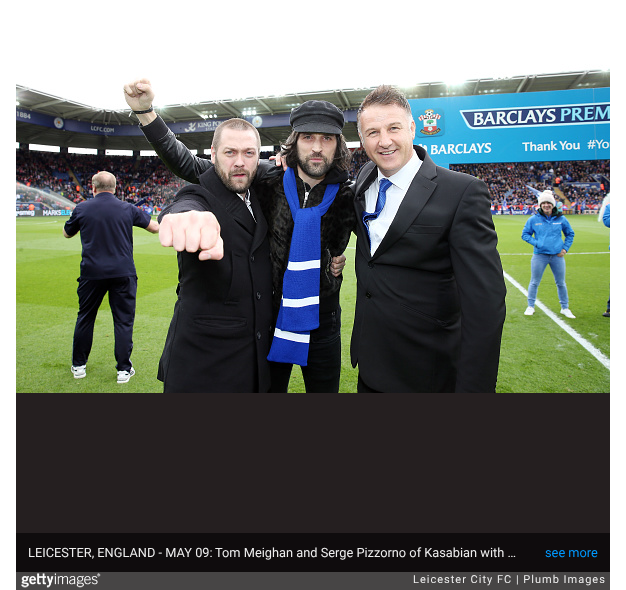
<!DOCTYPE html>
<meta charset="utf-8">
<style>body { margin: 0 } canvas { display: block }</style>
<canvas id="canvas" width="626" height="590"></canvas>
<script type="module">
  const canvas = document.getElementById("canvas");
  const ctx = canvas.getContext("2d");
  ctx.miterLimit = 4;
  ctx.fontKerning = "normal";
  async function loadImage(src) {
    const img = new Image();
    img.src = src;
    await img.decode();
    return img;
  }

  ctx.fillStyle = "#ffffff";
  ctx.fillRect(0, 0, 626, 590);
  ctx.fillStyle = "#251f20";
  ctx.fillRect(16, 393, 594, 140);
  ctx.drawImage(await loadImage("img1.png"), 16, 0, 594, 393);
  ctx.fillStyle = "#0f0c0d";
  ctx.fillRect(16, 533, 594, 39);
  ctx.font = "12.8px Roboto";
  ctx.fillStyle = "#eeeeee";
  ctx.fillText("LEICESTER, ENGLAND - MAY 09:", 28, 557);
  ctx.fillText("Tom Meighan and Serge Pizzorno of Kasabian with …", 215, 557);
  ctx.fillStyle = "#0099ff";
  ctx.fillText("see more", 545, 557);
  ctx.fillStyle = "#474545";
  ctx.fillRect(16, 572, 594, 18);
  ctx.drawImage(await loadImage("img2.png"), 21, 573, 80, 15);
  ctx.letterSpacing = "1px";
  ctx.font = "11px Roboto";
  ctx.fillStyle = "#eeeeee";
  ctx.fillText("Leicester City FC | Plumb Images", 413, 583);
</script>
